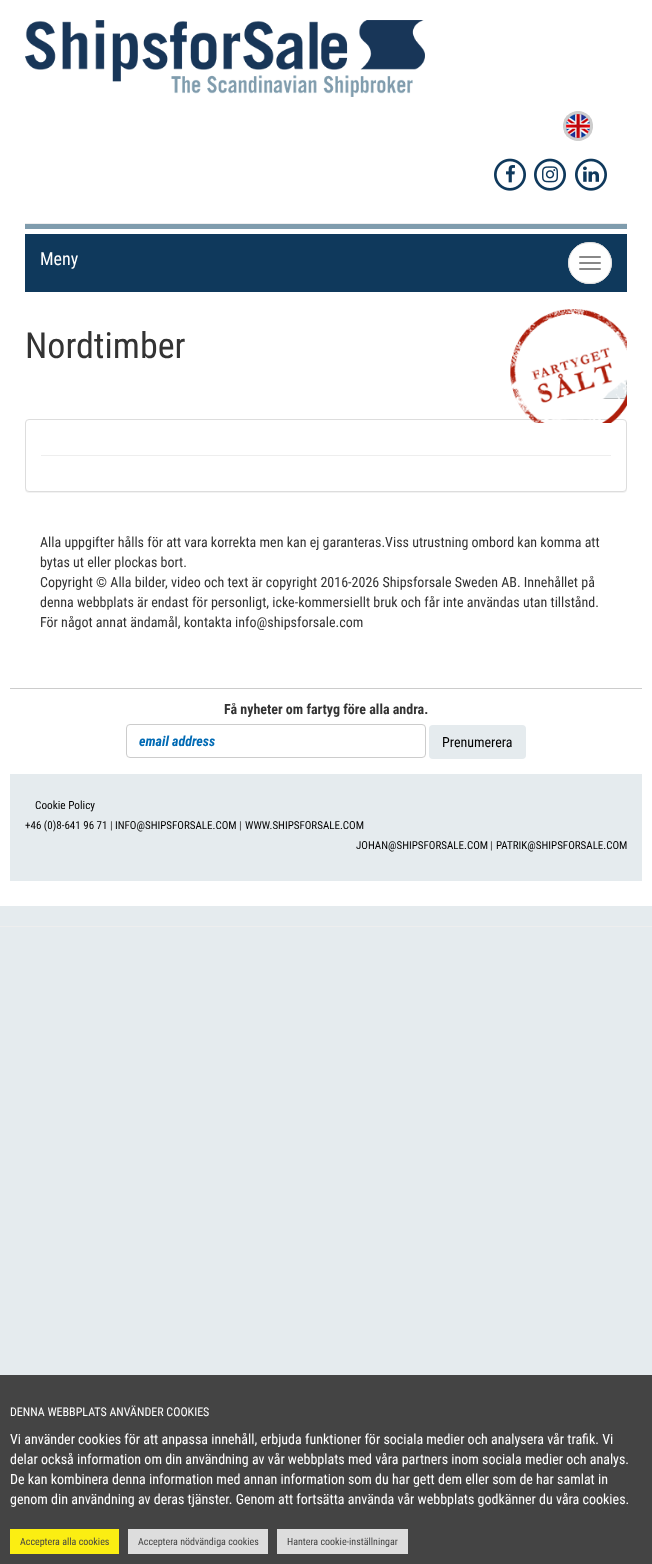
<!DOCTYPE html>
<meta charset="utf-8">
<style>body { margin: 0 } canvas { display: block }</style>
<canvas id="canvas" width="652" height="1564"></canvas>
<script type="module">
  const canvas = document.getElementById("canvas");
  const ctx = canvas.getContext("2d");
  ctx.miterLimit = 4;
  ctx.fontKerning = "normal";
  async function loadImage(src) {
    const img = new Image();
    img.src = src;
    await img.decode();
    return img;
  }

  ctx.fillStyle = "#e5ebee";
  ctx.fillRect(0, 0, 652, 1564);
  ctx.fillStyle = "#ffffff";
  ctx.fillRect(0, 0, 652, 906);
  ctx.drawImage(await loadImage("img1.png"), 25, 20, 400, 77);
  ctx.drawImage(await loadImage("img2.png"), 563, 111, 30, 30);
  ctx.drawImage(await loadImage("img3.png"), 494, 158, 32, 33);
  ctx.drawImage(await loadImage("img4.png"), 506, 165, 9, 18);
  ctx.drawImage(await loadImage("img3.png"), 534, 158, 32, 33);
  ctx.drawImage(await loadImage("img5.png"), 542, 166, 16, 17);
  ctx.drawImage(await loadImage("img3.png"), 575, 158, 32, 33);
  ctx.drawImage(await loadImage("img6.png"), 583, 166, 16, 16);
  ctx.fillStyle = "#7f9cad";
  ctx.fillRect(25, 224, 602, 5);
  ctx.fillStyle = "#eeeeee";
  ctx.fillRect(25, 223, 602, 1);
  ctx.fillStyle = "#0f395c";
  ctx.fillRect(25, 234, 602, 58);
  ctx.font = "18px Roboto Condensed";
  ctx.fillStyle = "#ffffff";
  ctx.fillText("Meny", 40, 265);
  ctx.beginPath();
  ctx.ellipse(590, 263, 22, 21, 0, 0, Math.PI * 2);
  ctx.fill();
  ctx.beginPath();
  ctx.moveTo(590, 242.5);
  ctx.bezierCurveTo(618.5, 242.5, 618.5, 283.5, 590, 283.5);
  ctx.bezierCurveTo(561.5, 283.5, 561.5, 242.5, 590, 242.5);
  ctx.closePath();
  ctx.strokeStyle = "#dddddd";
  ctx.stroke();
  ctx.fillStyle = "#888888";
  ctx.beginPath();
  ctx.roundRect(579, 256, 22, 2, 1);
  ctx.fill();
  ctx.beginPath();
  ctx.roundRect(579, 262, 22, 2, 1);
  ctx.fill();
  ctx.beginPath();
  ctx.roundRect(579, 268, 22, 2, 1);
  ctx.fill();
  ctx.font = "36px Roboto Condensed";
  ctx.fillStyle = "#333333";
  ctx.fillText("Nordtimber", 25, 358);
  ctx.fillStyle = "#e5ebee";
  ctx.beginPath();
  ctx.roundRect(566, 377, 61, 22, 3);
  ctx.fill();
  ctx.beginPath();
  ctx.roundRect(566.5, 377.5, 60, 21, 2.5);
  ctx.strokeStyle = "rgba(0, 0, 0, 0.2)";
  ctx.stroke();
  ctx.fillStyle = "rgba(0, 0, 0, 0.05)";
  ctx.filter = "blur(0.5px)";
  ctx.beginPath();
  ctx.roundRect(25, 420, 602, 73, 4);
  ctx.fill();
  ctx.filter = "none";
  ctx.fillStyle = "#ffffff";
  ctx.beginPath();
  ctx.roundRect(25.5, 419.5, 601, 72, 3.5);
  ctx.fill();
  ctx.strokeStyle = "#dddddd";
  ctx.stroke();
  ctx.drawImage(await loadImage("img7.png"), 510, 309, 117, 114);
  ctx.fillStyle = "#eeeeee";
  ctx.fillRect(41, 455, 570, 1);
  ctx.font = "14px Roboto Condensed";
  ctx.fillStyle = "#333333";
  ctx.fillText("Alla uppgifter hålls för att vara korrekta men kan ej garanteras.Viss utrustning ombord kan komma att", 40, 547);
  ctx.fillText("bytas ut eller plockas bort.", 40, 567);
  ctx.fillText("Copyright © Alla bilder, video och text är copyright 2016-2026 Shipsforsale Sweden AB. Innehållet på", 40, 587);
  ctx.fillText("denna webbplats är endast för personligt, icke-kommersiellt bruk och får inte användas utan tillstånd.", 40, 607);
  ctx.fillText("För något annat ändamål, kontakta info@shipsforsale.com", 40, 627);
  ctx.fillStyle = "#cccccc";
  ctx.fillRect(10, 688, 632, 1);
  ctx.font = "bold 14px Roboto Condensed";
  ctx.fillStyle = "#333333";
  ctx.fillText("Få nyheter om fartyg före alla andra.", 224, 714);
  ctx.beginPath();
  ctx.roundRect(126.5, 724.5, 299, 33, 3.5);
  ctx.strokeStyle = "#cccccc";
  ctx.stroke();
  ctx.font = "italic bold 14px Roboto Condensed";
  ctx.fillStyle = "#006ab4";
  ctx.fillText("email address", 139, 746);
  ctx.fillStyle = "#e5ebee";
  ctx.beginPath();
  ctx.roundRect(429, 725, 97, 34, 4);
  ctx.fill();
  ctx.font = "14px Roboto Condensed";
  ctx.fillStyle = "#000000";
  ctx.fillText("Prenumerera", 442, 747);
  ctx.fillStyle = "#e5ebee";
  ctx.fillRect(10, 774, 632, 107);
  ctx.font = "11.25px Roboto Condensed";
  ctx.fillStyle = "#000000";
  ctx.fillText("Cookie Policy", 35, 809);
  ctx.font = "11px Roboto Condensed";
  ctx.fillText("+46 (0)8-641 96 71", 25, 829);
  ctx.fillStyle = "#333333";
  ctx.fillText("|", 110, 829);
  ctx.fillStyle = "#000000";
  ctx.fillText("INFO@SHIPSFORSALE.COM", 115, 829);
  ctx.fillStyle = "#333333";
  ctx.fillText("|", 239, 829);
  ctx.fillStyle = "#000000";
  ctx.fillText("WWW.SHIPSFORSALE.COM", 245, 829);
  ctx.fillText("JOHAN@SHIPSFORSALE.COM", 356, 849);
  ctx.fillStyle = "#333333";
  ctx.fillText("|", 490, 849);
  ctx.fillStyle = "#000000";
  ctx.fillText("PATRIK@SHIPSFORSALE.COM", 496, 849);
  ctx.fillStyle = "#eeeeee";
  ctx.fillRect(0, 926, 652, 1);
  ctx.fillStyle = "#444444";
  ctx.fillRect(0, 1375, 652, 189);
  ctx.font = "12px Roboto Condensed";
  ctx.fillStyle = "#ffffff";
  ctx.fillText("DENNA WEBBPLATS ANVÄNDER COOKIES", 10, 1416);
  ctx.font = "14px Roboto Condensed";
  ctx.fillText("Vi använder cookies för att anpassa innehåll, erbjuda funktioner för sociala medier och analysera vår trafik. Vi", 10, 1444);
  ctx.fillText("delar också information om din användning av vår webbplats med våra partners inom sociala medier och analys.", 10, 1464);
  ctx.fillText("De kan kombinera denna information med annan information som du har gett dem eller som de har samlat in", 10, 1484);
  ctx.fillText("genom din användning av deras tjänster. Genom att fortsätta använda vår webbplats godkänner du våra cookies.", 10, 1504);
  ctx.fillStyle = "#fbee12";
  ctx.fillRect(10, 1529, 109, 25);
  ctx.font = "10px Roboto Condensed";
  ctx.fillStyle = "#444444";
  ctx.fillText("Acceptera alla cookies", 20, 1545);
  ctx.fillStyle = "#dddddd";
  ctx.fillRect(128, 1529, 140, 25);
  ctx.fillStyle = "#444444";
  ctx.fillText("Acceptera nödvändiga cookies", 138, 1545);
  ctx.fillStyle = "#dddddd";
  ctx.fillRect(277, 1529, 131, 25);
  ctx.fillStyle = "#444444";
  ctx.fillText("Hantera cookie-inställningar", 287, 1545);
</script>
